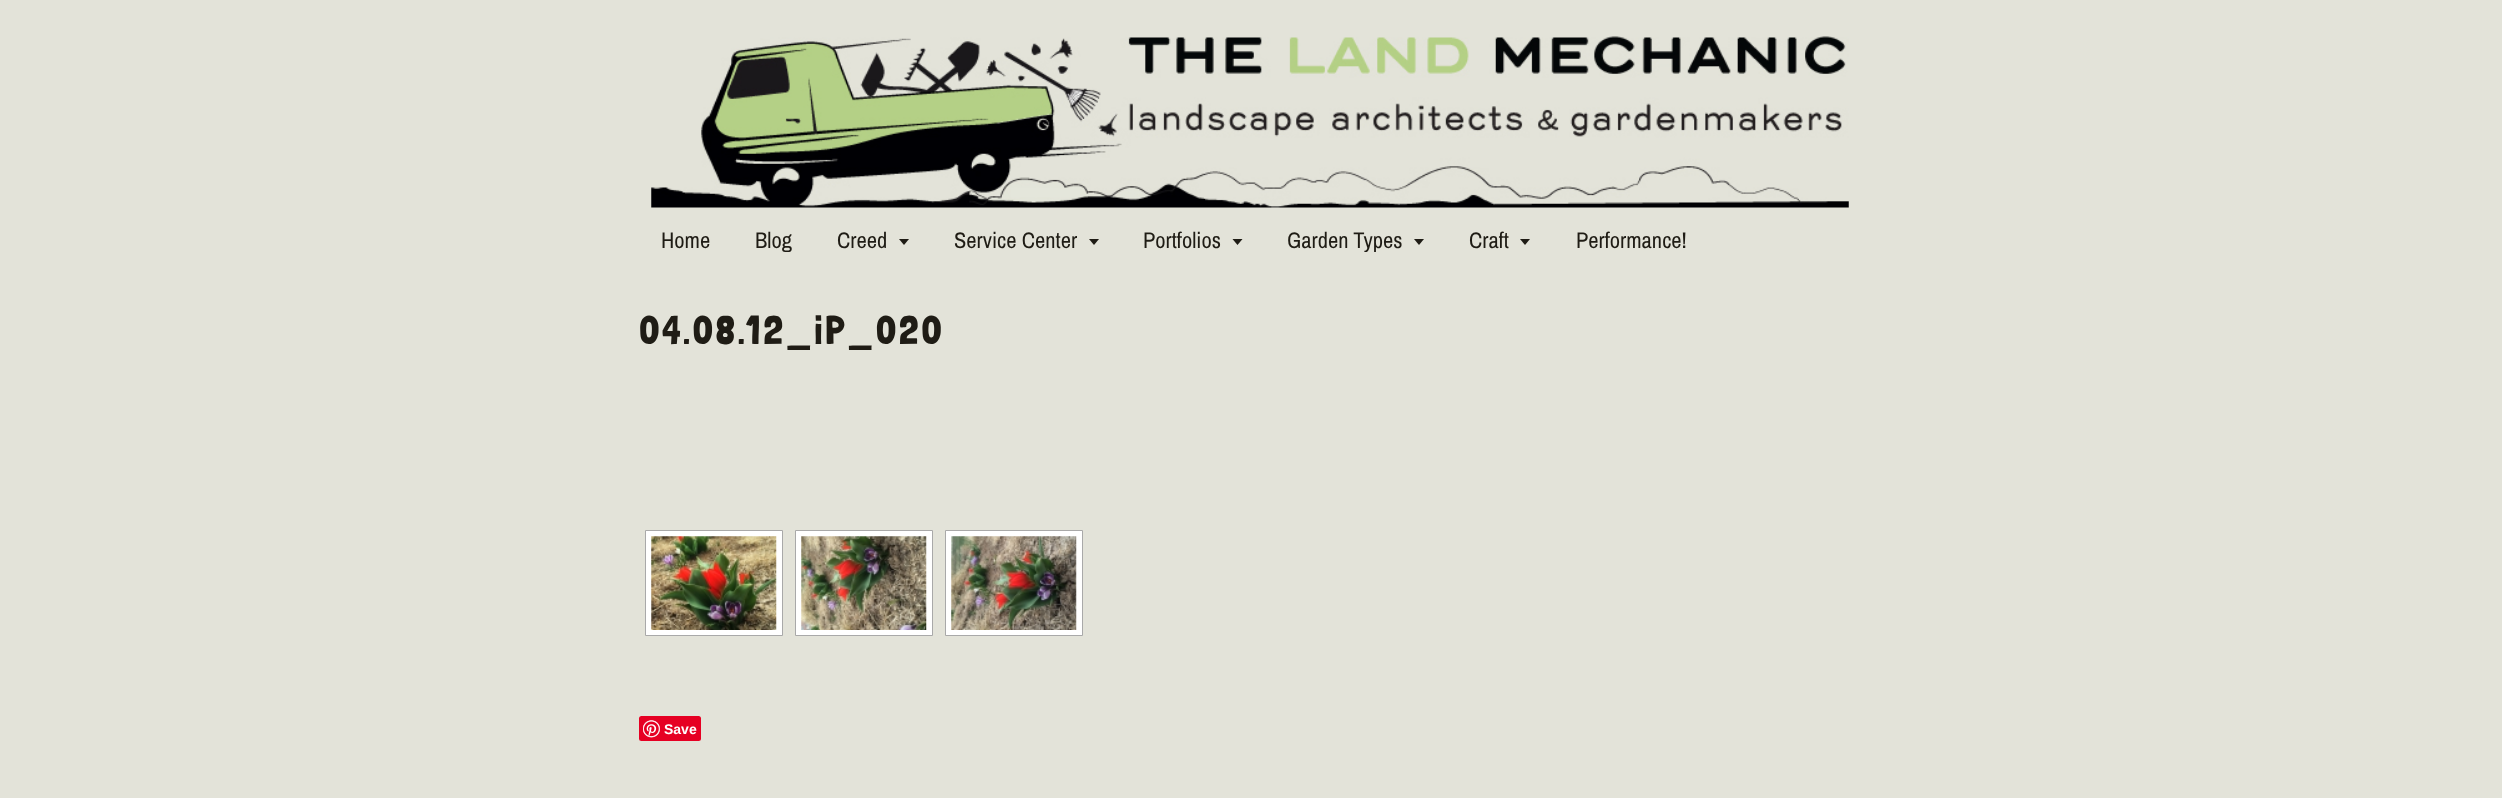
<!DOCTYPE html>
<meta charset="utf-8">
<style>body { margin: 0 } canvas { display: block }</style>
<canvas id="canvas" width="2502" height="798"></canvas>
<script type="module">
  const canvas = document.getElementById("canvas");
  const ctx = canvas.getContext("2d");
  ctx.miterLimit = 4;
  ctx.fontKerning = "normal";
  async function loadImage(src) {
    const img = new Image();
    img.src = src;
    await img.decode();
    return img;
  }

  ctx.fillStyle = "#e3e3d9";
  ctx.fillRect(0, 0, 2502, 798);
  ctx.drawImage(await loadImage("img1.png"), 651, 36, 1198, 172);
  ctx.font = "22.5px Archivo Narrow";
  ctx.fillStyle = "#1f1c15";
  ctx.fillText("Home", 661, 248);
  ctx.fillText("Blog", 755, 248);
  ctx.fillText("Creed", 837, 248);
  ctx.beginPath();
  ctx.moveTo(899, 239);
  ctx.lineTo(909, 239);
  ctx.lineTo(904, 245);
  ctx.closePath();
  ctx.fill();
  ctx.fillText("Service Center", 954, 248);
  ctx.beginPath();
  ctx.moveTo(1089, 239);
  ctx.lineTo(1099, 239);
  ctx.lineTo(1094, 245);
  ctx.closePath();
  ctx.fill();
  ctx.fillText("Portfolios", 1143, 248);
  ctx.beginPath();
  ctx.moveTo(1232.5, 239);
  ctx.lineTo(1242.5, 239);
  ctx.lineTo(1237.5, 245);
  ctx.closePath();
  ctx.fill();
  ctx.fillText("Garden Types", 1287, 248);
  ctx.beginPath();
  ctx.moveTo(1414, 239);
  ctx.lineTo(1424, 239);
  ctx.lineTo(1419, 245);
  ctx.closePath();
  ctx.fill();
  ctx.fillText("Craft", 1469, 248);
  ctx.beginPath();
  ctx.moveTo(1520, 239);
  ctx.lineTo(1530, 239);
  ctx.lineTo(1525, 245);
  ctx.closePath();
  ctx.fill();
  ctx.fillText("Performance!", 1576, 248);
  ctx.letterSpacing = "2.5px";
  ctx.font = "40px Londrina Solid";
  ctx.fillText("04.08.12_iP_020", 639, 344);
  ctx.fillStyle = "#ffffff";
  ctx.beginPath();
  ctx.rect(645.5, 530.5, 137, 105);
  ctx.fill();
  ctx.strokeStyle = "#a9a9a9";
  ctx.stroke();
  ctx.drawImage(await loadImage("img2.png"), 651, 536, 126, 94);
  ctx.beginPath();
  ctx.rect(795.5, 530.5, 137, 105);
  ctx.fill();
  ctx.stroke();
  ctx.drawImage(await loadImage("img3.png"), 801, 536, 126, 94);
  ctx.beginPath();
  ctx.rect(945.5, 530.5, 137, 105);
  ctx.fill();
  ctx.stroke();
  ctx.drawImage(await loadImage("img4.png"), 951, 536, 126, 94);
  ctx.fillStyle = "#e60023";
  ctx.beginPath();
  ctx.roundRect(639, 716, 62, 25, 2.5);
  ctx.fill();
  ctx.drawImage(await loadImage("img5.png"), 643, 720, 17, 18);
  ctx.letterSpacing = "0px";
  ctx.font = "bold 14px Liberation Sans";
  ctx.fillStyle = "#ffffff";
  ctx.fillText("Save", 664, 734);
</script>
